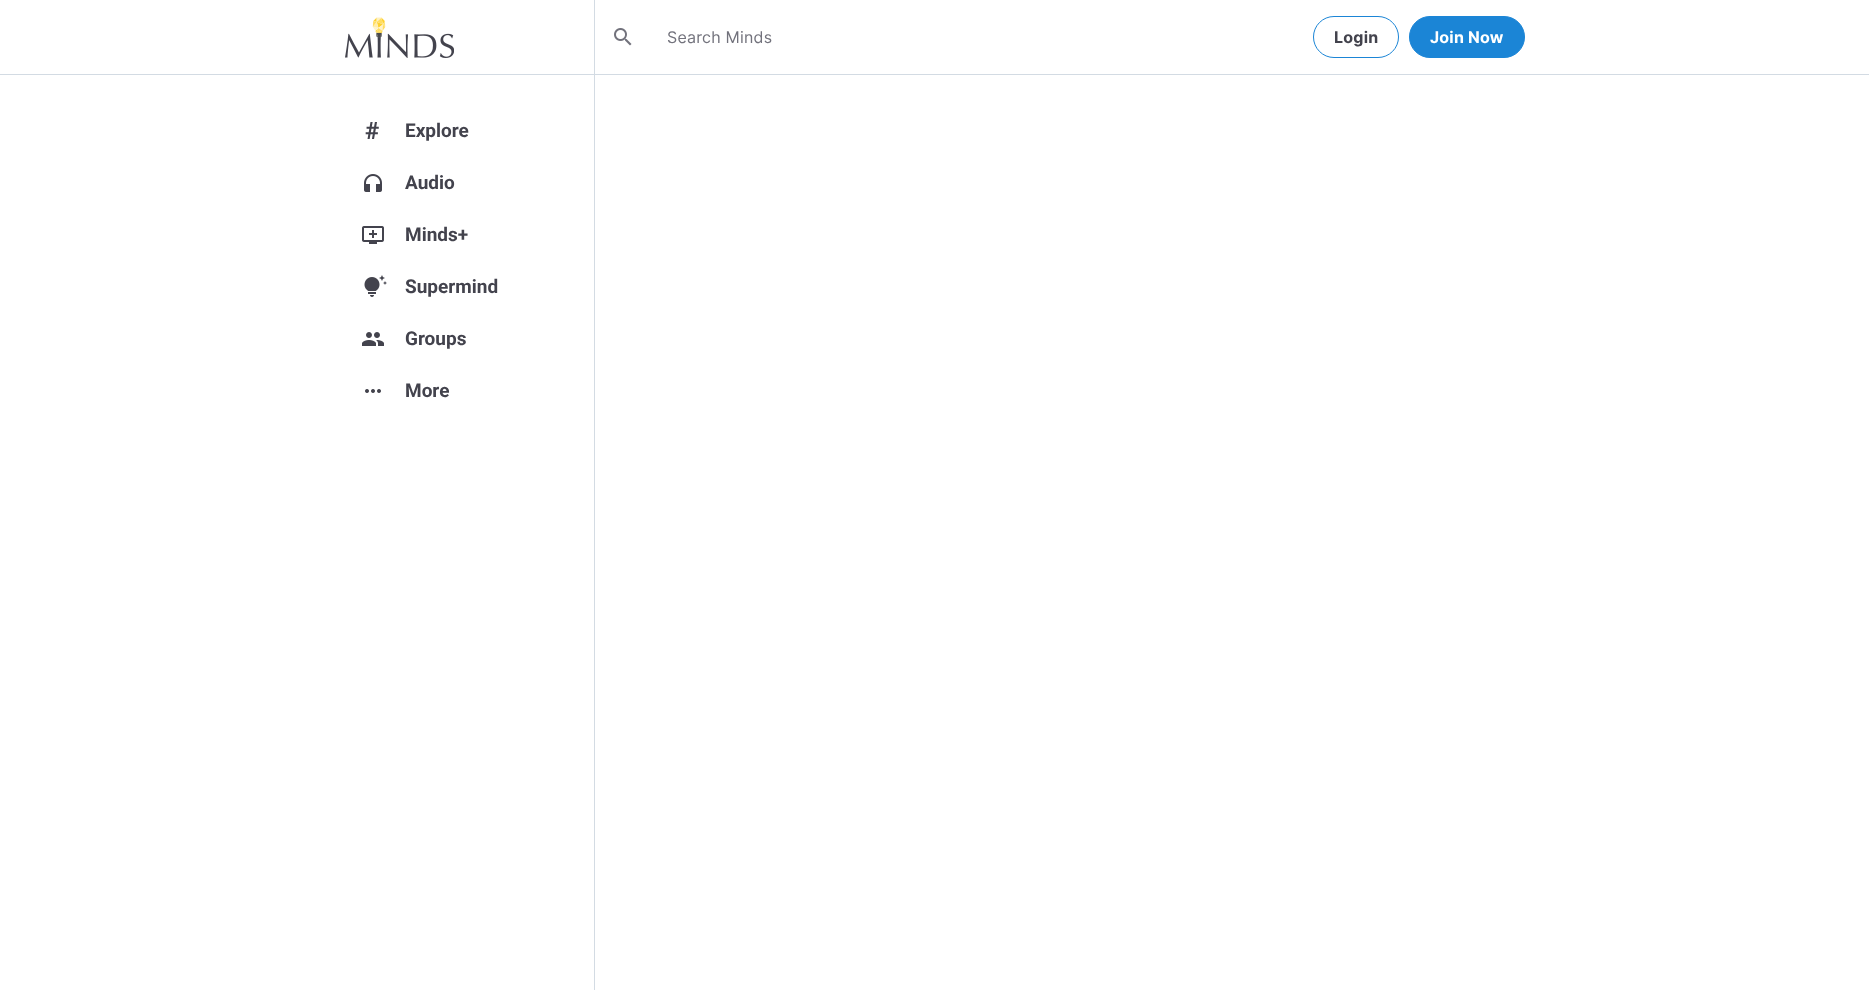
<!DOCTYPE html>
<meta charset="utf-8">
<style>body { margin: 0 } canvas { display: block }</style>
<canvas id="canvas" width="1869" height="990"></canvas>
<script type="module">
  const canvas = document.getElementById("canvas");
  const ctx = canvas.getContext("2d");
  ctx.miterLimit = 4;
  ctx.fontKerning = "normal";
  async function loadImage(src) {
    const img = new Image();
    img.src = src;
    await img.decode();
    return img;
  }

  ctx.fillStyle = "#ffffff";
  ctx.fillRect(0, 0, 1869, 990);
  ctx.fillStyle = "#d3dbe3";
  ctx.fillRect(0, 74, 1869, 1);
  ctx.fillRect(594, 0, 1, 74);
  ctx.drawImage(await loadImage("img1.png"), 345, 17, 109, 41);
  ctx.drawImage(await loadImage("img2.png"), 614, 28, 18, 18);
  ctx.letterSpacing = "0.2px";
  ctx.font = "16px Inter";
  ctx.fillStyle = "#72727c";
  ctx.fillText("Search Minds", 667, 43);
  ctx.beginPath();
  ctx.roundRect(1313.5, 16.5, 85, 41, 20.5);
  ctx.strokeStyle = "#1b85d6";
  ctx.stroke();
  ctx.font = "bold 16px Inter";
  ctx.fillStyle = "#43434d";
  ctx.fillText("Login", 1334, 43);
  ctx.fillStyle = "#1b85d6";
  ctx.beginPath();
  ctx.roundRect(1409.5, 16.5, 115, 41, 20.5);
  ctx.fill();
  ctx.stroke();
  ctx.fillStyle = "#ffffff";
  ctx.fillText("Join Now", 1430, 43);
  ctx.fillStyle = "#d3dbe3";
  ctx.fillRect(594, 75, 1, 915);
  ctx.letterSpacing = "0px";
  ctx.font = "bold 24px Roboto";
  ctx.fillStyle = "#43434d";
  ctx.fillText("#", 365, 139);
  ctx.font = "bold 19px Roboto";
  ctx.fillText("Explore", 405, 137);
  ctx.drawImage(await loadImage("img3.png"), 364, 174, 18, 18);
  ctx.fillText("Audio", 405, 189);
  ctx.drawImage(await loadImage("img4.png"), 362, 226, 22, 18);
  ctx.fillText("Minds+", 405, 241);
  ctx.drawImage(await loadImage("img5.png"), 364, 275, 23, 22);
  ctx.fillText("Supermind", 405, 293);
  ctx.drawImage(await loadImage("img6.png"), 362, 332, 22, 14);
  ctx.fillText("Groups", 405, 345);
  ctx.drawImage(await loadImage("img7.png"), 365, 389, 16, 4);
  ctx.fillText("More", 405, 397);
</script>
